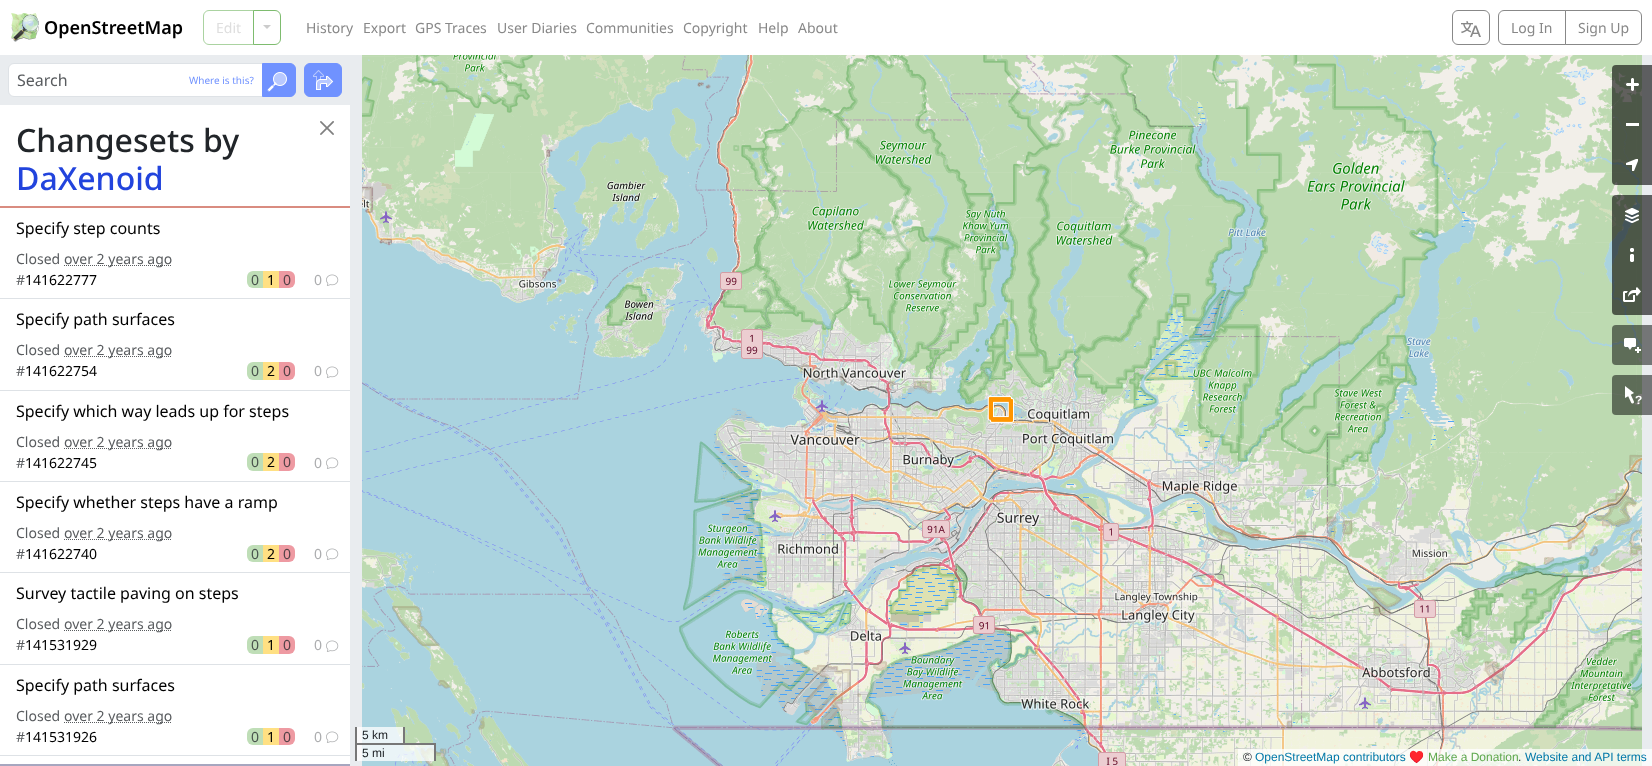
<!DOCTYPE html>
<meta charset="utf-8">
<style>body { margin: 0 } canvas { display: block }</style>
<canvas id="canvas" width="1652" height="766"></canvas>
<script type="module">
  const canvas = document.getElementById("canvas");
  const ctx = canvas.getContext("2d");
  ctx.miterLimit = 4;
  ctx.fontKerning = "normal";
  async function loadImage(src) {
    const img = new Image();
    img.src = src;
    await img.decode();
    return img;
  }

  ctx.fillStyle = "#ffffff";
  ctx.fillRect(0, 0, 1652, 766);
  ctx.drawImage(await loadImage("img1.png"), 11, 13, 28, 29);
  ctx.font = "600 18px Noto Sans";
  ctx.fillStyle = "#000000";
  ctx.fillText("OpenStreetMap", 44, 34);
  ctx.beginPath();
  ctx.roundRect(203.5, 10.5, 50, 34, [5.5, 0, 0, 5.5]);
  ctx.strokeStyle = "#abd3a1";
  ctx.stroke();
  ctx.font = "14px Noto Sans";
  ctx.fillStyle = "#dedede";
  ctx.fillText("Edit", 216, 33);
  ctx.beginPath();
  ctx.roundRect(253.5, 10.5, 27, 34, [0, 5.5, 5.5, 0]);
  ctx.strokeStyle = "#7ebc6f";
  ctx.stroke();
  ctx.fillStyle = "#cccccc";
  ctx.beginPath();
  ctx.moveTo(263, 25);
  ctx.lineTo(271, 25);
  ctx.lineTo(267, 29);
  ctx.closePath();
  ctx.fill();
  ctx.fillStyle = "#888888";
  ctx.fillText("History", 306, 33);
  ctx.fillText("Export", 363, 33);
  ctx.fillText("GPS Traces", 415, 33);
  ctx.fillText("User Diaries", 497, 33);
  ctx.fillText("Communities", 586, 33);
  ctx.fillText("Copyright", 683, 33);
  ctx.fillText("Help", 758, 33);
  ctx.fillText("About", 798, 33);
  ctx.beginPath();
  ctx.roundRect(1452.5, 10.5, 37, 34, 5.5);
  ctx.strokeStyle = "#888888";
  ctx.stroke();
  ctx.drawImage(await loadImage("img2.png"), 1461, 21, 20, 16);
  ctx.beginPath();
  ctx.roundRect(1498.5, 10.5, 67, 34, [5.5, 0, 0, 5.5]);
  ctx.stroke();
  ctx.fillText("Log In", 1511, 33);
  ctx.beginPath();
  ctx.roundRect(1565.5, 10.5, 76, 34, [0, 5.5, 5.5, 0]);
  ctx.stroke();
  ctx.fillText("Sign Up", 1578, 33);
  ctx.fillStyle = "#e9ecef";
  ctx.fillRect(0, 55, 350, 50);
  ctx.fillStyle = "#ffffff";
  ctx.beginPath();
  ctx.roundRect(8.5, 63.5, 254, 33, [5.5, 0, 0, 5.5]);
  ctx.fill();
  ctx.strokeStyle = "#dee2e6";
  ctx.stroke();
  ctx.font = "16px Noto Sans";
  ctx.fillStyle = "#595c5f";
  ctx.fillText("Search", 17, 86);
  ctx.font = "10px Noto Sans";
  ctx.fillStyle = "#7092ff";
  ctx.fillText("Where is this?", 189, 84);
  ctx.beginPath();
  ctx.roundRect(262.5, 63.5, 33, 33, [0, 5.5, 5.5, 0]);
  ctx.fill();
  ctx.strokeStyle = "#7092ff";
  ctx.stroke();
  ctx.drawImage(await loadImage("img3.png"), 267, 72, 20, 20);
  ctx.beginPath();
  ctx.roundRect(304.5, 63.5, 37, 33, 5.5);
  ctx.fill();
  ctx.stroke();
  ctx.drawImage(await loadImage("img4.png"), 313, 70, 21, 20);
  ctx.font = "500 32px Noto Sans";
  ctx.fillStyle = "#212529";
  ctx.fillText("Changesets by", 16, 152);
  ctx.fillStyle = "#2244dd";
  ctx.fillText("DaXenoid", 16, 190);
  ctx.fillStyle = "#d98c80";
  ctx.fillRect(0, 206, 350, 2);
  ctx.fillStyle = "#dee2e6";
  ctx.fillRect(0, 298, 350, 1);
  ctx.font = "16px Noto Sans";
  ctx.fillStyle = "#000000";
  ctx.fillText("Specify step counts", 16, 234);
  ctx.font = "14px Noto Sans";
  ctx.fillStyle = "#595c5f";
  ctx.fillText("Closed", 16, 264);
  ctx.beginPath();
  ctx.moveTo(64, 265.5);
  ctx.lineTo(172, 265.5);
  ctx.strokeStyle = "#595c5f";
  ctx.setLineDash([1, 1]);
  ctx.stroke();
  ctx.fillText("over 2 years ago", 64, 264);
  ctx.fillText("#", 16, 285);
  ctx.fillStyle = "#000000";
  ctx.fillText("141622777", 25, 285);
  ctx.fillStyle = "#bfdeb7";
  ctx.beginPath();
  ctx.roundRect(247, 271, 16, 17, [6, 0, 0, 6]);
  ctx.fill();
  ctx.fillStyle = "#49534d";
  ctx.fillText("0", 251, 285);
  ctx.fillStyle = "#ffe083";
  ctx.fillRect(263, 271, 16, 17);
  ctx.fillStyle = "#000000";
  ctx.fillText("1", 267, 285);
  ctx.fillStyle = "#ee9aa2";
  ctx.beginPath();
  ctx.roundRect(279, 271, 16, 17, [0, 6, 6, 0]);
  ctx.fill();
  ctx.fillStyle = "#544247";
  ctx.fillText("0", 283, 285);
  ctx.fillStyle = "#acadaf";
  ctx.fillText("0", 314, 285);
  ctx.drawImage(await loadImage("img5.png"), 326, 274, 13, 12);
  ctx.fillStyle = "#dee2e6";
  ctx.fillRect(0, 390, 350, 1);
  ctx.font = "16px Noto Sans";
  ctx.fillStyle = "#000000";
  ctx.fillText("Specify path surfaces", 16, 325);
  ctx.font = "14px Noto Sans";
  ctx.fillStyle = "#595c5f";
  ctx.fillText("Closed", 16, 355);
  ctx.beginPath();
  ctx.moveTo(64, 356.5);
  ctx.lineTo(172, 356.5);
  ctx.stroke();
  ctx.fillText("over 2 years ago", 64, 355);
  ctx.fillText("#", 16, 376);
  ctx.fillStyle = "#000000";
  ctx.fillText("141622754", 25, 376);
  ctx.fillStyle = "#bfdeb7";
  ctx.beginPath();
  ctx.roundRect(247, 362, 16, 18, [6, 0, 0, 6]);
  ctx.fill();
  ctx.fillStyle = "#49534d";
  ctx.fillText("0", 251, 376);
  ctx.fillStyle = "#ffe083";
  ctx.fillRect(263, 362, 16, 18);
  ctx.fillStyle = "#000000";
  ctx.fillText("2", 267, 376);
  ctx.fillStyle = "#ee9aa2";
  ctx.beginPath();
  ctx.roundRect(279, 362, 16, 18, [0, 6, 6, 0]);
  ctx.fill();
  ctx.fillStyle = "#544247";
  ctx.fillText("0", 283, 376);
  ctx.fillStyle = "#acadaf";
  ctx.fillText("0", 314, 376);
  ctx.drawImage(await loadImage("img5.png"), 326, 366, 13, 12);
  ctx.fillStyle = "#dee2e6";
  ctx.fillRect(0, 481, 350, 1);
  ctx.font = "16px Noto Sans";
  ctx.fillStyle = "#000000";
  ctx.fillText("Specify which way leads up for steps", 16, 417);
  ctx.font = "14px Noto Sans";
  ctx.fillStyle = "#595c5f";
  ctx.fillText("Closed", 16, 447);
  ctx.beginPath();
  ctx.moveTo(64, 448.5);
  ctx.lineTo(172, 448.5);
  ctx.stroke();
  ctx.fillText("over 2 years ago", 64, 447);
  ctx.fillText("#", 16, 468);
  ctx.fillStyle = "#000000";
  ctx.fillText("141622745", 25, 468);
  ctx.fillStyle = "#bfdeb7";
  ctx.beginPath();
  ctx.roundRect(247, 453, 16, 18, [6, 0, 0, 6]);
  ctx.fill();
  ctx.fillStyle = "#49534d";
  ctx.fillText("0", 251, 467);
  ctx.fillStyle = "#ffe083";
  ctx.fillRect(263, 453, 16, 18);
  ctx.fillStyle = "#000000";
  ctx.fillText("2", 267, 467);
  ctx.fillStyle = "#ee9aa2";
  ctx.beginPath();
  ctx.roundRect(279, 453, 16, 18, [0, 6, 6, 0]);
  ctx.fill();
  ctx.fillStyle = "#544247";
  ctx.fillText("0", 283, 467);
  ctx.fillStyle = "#acadaf";
  ctx.fillText("0", 314, 468);
  ctx.drawImage(await loadImage("img5.png"), 326, 457, 13, 12);
  ctx.fillStyle = "#dee2e6";
  ctx.fillRect(0, 572, 350, 1);
  ctx.font = "16px Noto Sans";
  ctx.fillStyle = "#000000";
  ctx.fillText("Specify whether steps have a ramp", 16, 508);
  ctx.font = "14px Noto Sans";
  ctx.fillStyle = "#595c5f";
  ctx.fillText("Closed", 16, 538);
  ctx.beginPath();
  ctx.moveTo(64, 539.5);
  ctx.lineTo(172, 539.5);
  ctx.stroke();
  ctx.fillText("over 2 years ago", 64, 538);
  ctx.fillText("#", 16, 559);
  ctx.fillStyle = "#000000";
  ctx.fillText("141622740", 25, 559);
  ctx.fillStyle = "#bfdeb7";
  ctx.beginPath();
  ctx.roundRect(247, 545, 16, 17, [6, 0, 0, 6]);
  ctx.fill();
  ctx.fillStyle = "#49534d";
  ctx.fillText("0", 251, 559);
  ctx.fillStyle = "#ffe083";
  ctx.fillRect(263, 545, 16, 17);
  ctx.fillStyle = "#000000";
  ctx.fillText("2", 267, 559);
  ctx.fillStyle = "#ee9aa2";
  ctx.beginPath();
  ctx.roundRect(279, 545, 16, 17, [0, 6, 6, 0]);
  ctx.fill();
  ctx.fillStyle = "#544247";
  ctx.fillText("0", 283, 559);
  ctx.fillStyle = "#acadaf";
  ctx.fillText("0", 314, 559);
  ctx.drawImage(await loadImage("img5.png"), 326, 548, 13, 12);
  ctx.fillStyle = "#dee2e6";
  ctx.fillRect(0, 664, 350, 1);
  ctx.font = "16px Noto Sans";
  ctx.fillStyle = "#000000";
  ctx.fillText("Survey tactile paving on steps", 16, 599);
  ctx.font = "14px Noto Sans";
  ctx.fillStyle = "#595c5f";
  ctx.fillText("Closed", 16, 629);
  ctx.beginPath();
  ctx.moveTo(64, 630.5);
  ctx.lineTo(172, 630.5);
  ctx.stroke();
  ctx.fillText("over 2 years ago", 64, 629);
  ctx.fillText("#", 16, 650);
  ctx.fillStyle = "#000000";
  ctx.fillText("141531929", 25, 650);
  ctx.fillStyle = "#bfdeb7";
  ctx.beginPath();
  ctx.roundRect(247, 636, 16, 18, [6, 0, 0, 6]);
  ctx.fill();
  ctx.fillStyle = "#49534d";
  ctx.fillText("0", 251, 650);
  ctx.fillStyle = "#ffe083";
  ctx.fillRect(263, 636, 16, 18);
  ctx.fillStyle = "#000000";
  ctx.fillText("1", 267, 650);
  ctx.fillStyle = "#ee9aa2";
  ctx.beginPath();
  ctx.roundRect(279, 636, 16, 18, [0, 6, 6, 0]);
  ctx.fill();
  ctx.fillStyle = "#544247";
  ctx.fillText("0", 283, 650);
  ctx.fillStyle = "#acadaf";
  ctx.fillText("0", 314, 650);
  ctx.drawImage(await loadImage("img5.png"), 326, 640, 13, 12);
  ctx.fillStyle = "#dee2e6";
  ctx.fillRect(0, 755, 350, 1);
  ctx.font = "16px Noto Sans";
  ctx.fillStyle = "#000000";
  ctx.fillText("Specify path surfaces", 16, 691);
  ctx.font = "14px Noto Sans";
  ctx.fillStyle = "#595c5f";
  ctx.fillText("Closed", 16, 721);
  ctx.beginPath();
  ctx.moveTo(64, 722.5);
  ctx.lineTo(172, 722.5);
  ctx.stroke();
  ctx.fillText("over 2 years ago", 64, 721);
  ctx.fillText("#", 16, 742);
  ctx.fillStyle = "#000000";
  ctx.fillText("141531926", 25, 742);
  ctx.fillStyle = "#bfdeb7";
  ctx.beginPath();
  ctx.roundRect(247, 728, 16, 17, [6, 0, 0, 6]);
  ctx.fill();
  ctx.fillStyle = "#49534d";
  ctx.fillText("0", 251, 742);
  ctx.fillStyle = "#ffe083";
  ctx.fillRect(263, 728, 16, 17);
  ctx.fillStyle = "#000000";
  ctx.fillText("1", 267, 742);
  ctx.fillStyle = "#ee9aa2";
  ctx.beginPath();
  ctx.roundRect(279, 728, 16, 17, [0, 6, 6, 0]);
  ctx.fill();
  ctx.fillStyle = "#544247";
  ctx.fillText("0", 283, 742);
  ctx.fillStyle = "#acadaf";
  ctx.fillText("0", 314, 742);
  ctx.drawImage(await loadImage("img5.png"), 326, 731, 13, 12);
  ctx.fillStyle = "#a6a6bf";
  ctx.fillRect(0, 764, 350, 2);
  ctx.drawImage(await loadImage("img6.png"), 320, 121, 14, 14);
  ctx.fillStyle = "#e9ecef";
  ctx.fillRect(350, 55, 1302, 711);
  ctx.drawImage(await loadImage("img7.png"), 362, 55, 256, 249);
  ctx.drawImage(await loadImage("img8.png"), 618, 55, 256, 249);
  ctx.drawImage(await loadImage("img9.png"), 874, 55, 256, 249);
  ctx.drawImage(await loadImage("img10.png"), 1130, 55, 256, 249);
  ctx.drawImage(await loadImage("img11.png"), 1386, 55, 256, 249);
  ctx.drawImage(await loadImage("img12.png"), 362, 304, 256, 256);
  ctx.drawImage(await loadImage("img13.png"), 618, 304, 256, 256);
  ctx.drawImage(await loadImage("img14.png"), 874, 304, 256, 256);
  ctx.drawImage(await loadImage("img15.png"), 1130, 304, 256, 256);
  ctx.drawImage(await loadImage("img16.png"), 1386, 304, 256, 256);
  ctx.drawImage(await loadImage("img17.png"), 362, 560, 256, 206);
  ctx.drawImage(await loadImage("img18.png"), 618, 560, 256, 206);
  ctx.drawImage(await loadImage("img19.png"), 874, 560, 256, 206);
  ctx.drawImage(await loadImage("img20.png"), 1130, 560, 256, 206);
  ctx.drawImage(await loadImage("img21.png"), 1386, 560, 256, 206);
  ctx.drawImage(await loadImage("img22.png"), 987, 396, 27, 27);
  ctx.fillStyle = "rgba(0, 0, 0, 0.6)";
  ctx.beginPath();
  ctx.roundRect(1612, 65, 40, 40, [4, 0, 0, 0]);
  ctx.fill();
  ctx.drawImage(await loadImage("img23.png"), 1626, 78, 13, 13);
  ctx.fillRect(1612, 105, 40, 40);
  ctx.fillStyle = "#ffffff";
  ctx.fillRect(1626, 123, 13, 3);
  ctx.fillStyle = "rgba(0, 0, 0, 0.6)";
  ctx.beginPath();
  ctx.roundRect(1612, 145, 40, 40, [0, 0, 0, 4]);
  ctx.fill();
  ctx.drawImage(await loadImage("img24.png"), 1626, 159, 12, 12);
  ctx.beginPath();
  ctx.roundRect(1612, 195, 40, 40, [4, 0, 0, 0]);
  ctx.fill();
  ctx.drawImage(await loadImage("img25.png"), 1625, 208, 14, 15);
  ctx.fillRect(1612, 235, 40, 40);
  ctx.drawImage(await loadImage("img26.png"), 1630, 248, 4, 14);
  ctx.beginPath();
  ctx.roundRect(1612, 275, 40, 40, [0, 0, 0, 4]);
  ctx.fill();
  ctx.drawImage(await loadImage("img27.png"), 1623, 287, 18, 15);
  ctx.fillStyle = "rgba(0, 0, 0, 0.5)";
  ctx.beginPath();
  ctx.roundRect(1612, 325, 40, 40, [4, 0, 0, 4]);
  ctx.fill();
  ctx.drawImage(await loadImage("img28.png"), 1624, 338, 17, 15);
  ctx.beginPath();
  ctx.roundRect(1612, 375, 40, 40, [4, 0, 0, 4]);
  ctx.fill();
  ctx.drawImage(await loadImage("img29.png"), 1625, 386, 9, 18);
  ctx.font = "bold 12px Liberation Sans";
  ctx.fillStyle = "#ffffff";
  ctx.fillText("?", 1635, 404);
  ctx.fillStyle = "rgba(255, 255, 255, 0.75)";
  ctx.fillRect(357, 727, 46, 16);
  ctx.fillStyle = "#777777";
  ctx.fillRect(403, 727, 2, 18);
  ctx.fillRect(355, 727, 2, 18);
  ctx.font = "12px Liberation Sans";
  ctx.fillStyle = "#212529";
  ctx.fillText("5 km", 362, 739);
  ctx.fillStyle = "rgba(255, 255, 255, 0.75)";
  ctx.fillRect(357, 745, 77, 16);
  ctx.fillStyle = "#777777";
  ctx.fillRect(355, 743, 81, 2);
  ctx.fillRect(434, 743, 2, 18);
  ctx.fillRect(355, 743, 2, 18);
  ctx.fillStyle = "#212529";
  ctx.fillText("5 mi", 362, 757);
  ctx.fillStyle = "rgba(255, 255, 255, 0.75)";
  ctx.fillRect(1238, 749, 414, 17);
  ctx.fillStyle = "#212529";
  ctx.fillText("©", 1243, 761);
  ctx.fillStyle = "#0078a8";
  ctx.fillText("OpenStreetMap contributors", 1255, 761);
  ctx.font = "12px Noto Color Emoji";
  ctx.fillStyle = "#212529";
  ctx.fillText("♥️", 1409, 761);
  ctx.font = "12px Liberation Sans";
  ctx.fillStyle = "#60a94f";
  ctx.fillText("Make a Donation", 1428, 761);
  ctx.fillStyle = "#212529";
  ctx.fillText(".", 1518, 761);
  ctx.fillStyle = "#0078a8";
  ctx.fillText("Website and API terms", 1525, 761);
</script>
